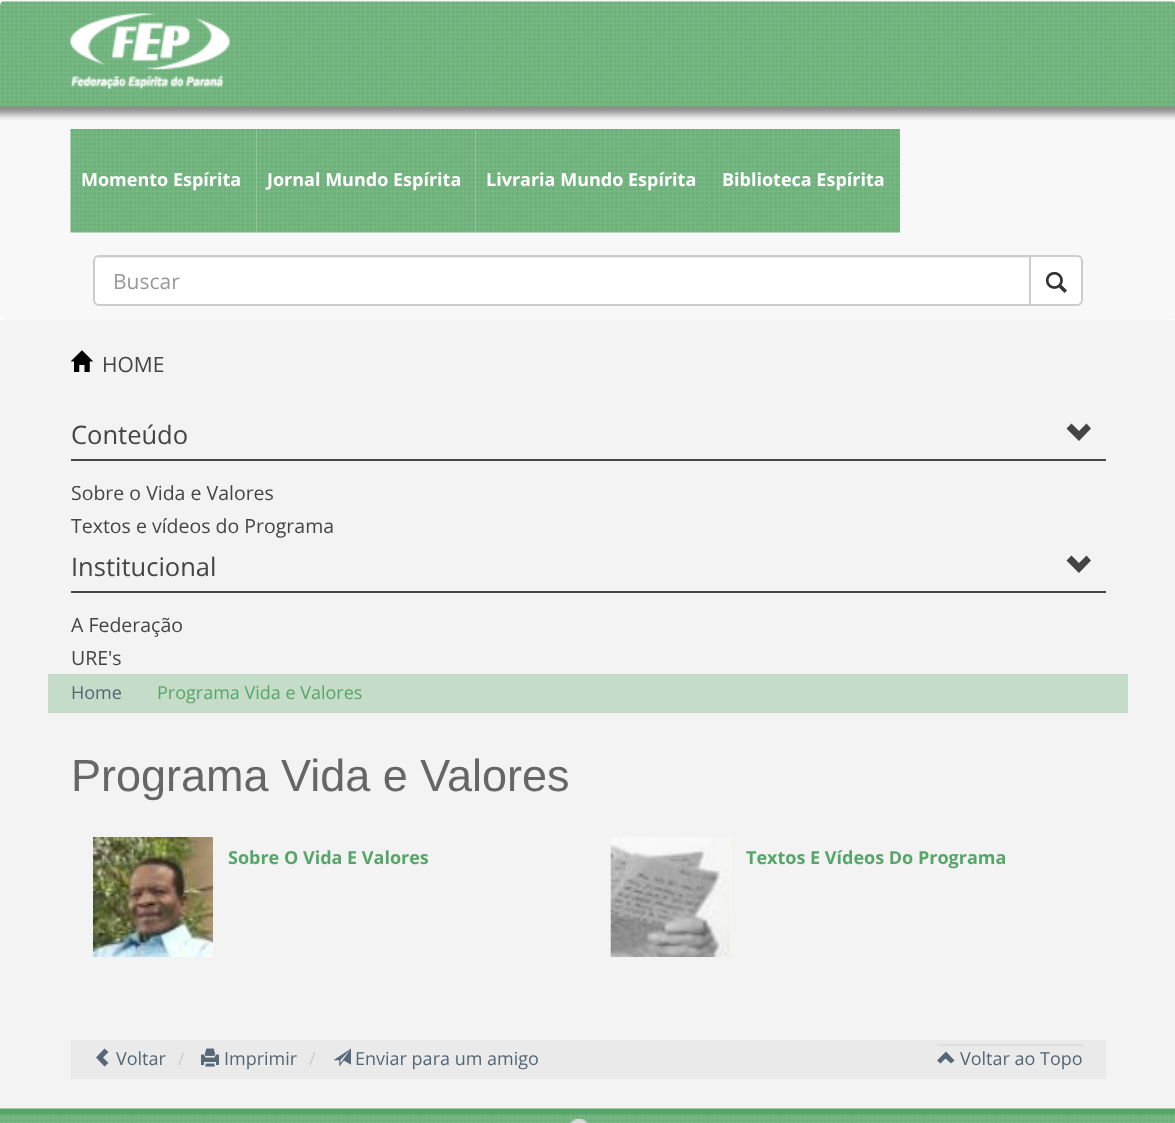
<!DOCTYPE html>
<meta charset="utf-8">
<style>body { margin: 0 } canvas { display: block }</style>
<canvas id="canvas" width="1175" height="1123"></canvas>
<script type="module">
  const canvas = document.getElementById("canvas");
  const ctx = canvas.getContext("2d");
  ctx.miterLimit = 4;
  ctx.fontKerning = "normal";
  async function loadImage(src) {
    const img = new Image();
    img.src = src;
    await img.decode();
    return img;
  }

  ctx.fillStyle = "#ffffff";
  ctx.fillRect(0, 0, 1175, 1123);
  ctx.fillStyle = "#f8f8f8";
  ctx.beginPath();
  ctx.roundRect(0, 0, 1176, 320, 6);
  ctx.fill();
  ctx.drawImage(await loadImage("img1.png"), 0, 1, 1175, 119);
  ctx.drawImage(await loadImage("img2.png"), 70, 13, 160, 76);
  ctx.drawImage(await loadImage("img3.png"), 70, 129, 187, 104);
  ctx.font = "bold 18px Open Sans";
  ctx.fillStyle = "#ffffff";
  ctx.fillText("Momento Espírita", 81, 186);
  ctx.drawImage(await loadImage("img4.png"), 256, 129, 220, 104);
  ctx.fillText("Jornal Mundo Espírita", 267, 186);
  ctx.drawImage(await loadImage("img5.png"), 475, 129, 236, 104);
  ctx.fillText("Livraria Mundo Espírita", 486, 186);
  ctx.drawImage(await loadImage("img6.png"), 711, 129, 189, 104);
  ctx.fillText("Biblioteca Espírita", 722, 186);
  ctx.beginPath();
  ctx.roundRect(1030, 256, 52, 49, [0, 5, 5, 0]);
  ctx.fill();
  ctx.strokeStyle = "#cccccc";
  ctx.lineWidth = 2;
  ctx.stroke();
  ctx.beginPath();
  ctx.roundRect(93, 255, 938, 51, [6, 0, 0, 6]);
  ctx.fill();
  ctx.fillStyle = "#ececec";
  ctx.beginPath();
  ctx.moveTo(99, 258);
  ctx.lineTo(1029, 258);
  ctx.lineTo(1029, 257);
  ctx.lineTo(100, 257);
  ctx.bezierCurveTo(98, 257, 97, 258, 96, 259);
  ctx.closePath();
  ctx.fill();
  ctx.beginPath();
  ctx.roundRect(94, 256, 936, 49, [5, 0, 0, 5]);
  ctx.stroke();
  ctx.font = "21px Open Sans";
  ctx.fillStyle = "#999999";
  ctx.fillText("Buscar", 113, 289);
  ctx.drawImage(await loadImage("img7.png"), 1045, 271, 22, 22);
  ctx.fillStyle = "#f3f3f3";
  ctx.fillRect(0, 320, 1175, 789);
  ctx.drawImage(await loadImage("img8.png"), 70, 350, 24, 22);
  ctx.fillStyle = "#444444";
  ctx.fillText("HOME", 102, 372);
  ctx.fillRect(71, 459, 1035, 2);
  ctx.font = "25.5px Open Sans";
  ctx.fillText("Conteúdo", 71, 444);
  ctx.beginPath();
  ctx.moveTo(1066.5, 428.5);
  ctx.lineTo(1079, 441);
  ctx.lineTo(1091, 428.5);
  ctx.lineTo(1086.5, 423.5);
  ctx.lineTo(1079, 431);
  ctx.lineTo(1071.5, 423.5);
  ctx.closePath();
  ctx.fill();
  ctx.font = "19.5px Open Sans";
  ctx.fillText("Sobre o Vida e Valores", 71, 500);
  ctx.fillText("Textos e vídeos do Programa", 71, 533);
  ctx.fillRect(71, 591, 1035, 2);
  ctx.font = "25.5px Open Sans";
  ctx.fillText("Institucional", 71, 576);
  ctx.beginPath();
  ctx.moveTo(1066.5, 560.5);
  ctx.lineTo(1079, 573);
  ctx.lineTo(1091, 560.5);
  ctx.lineTo(1086.5, 555.5);
  ctx.lineTo(1079, 563);
  ctx.lineTo(1071.5, 555.5);
  ctx.closePath();
  ctx.fill();
  ctx.font = "19.5px Open Sans";
  ctx.fillText("A Federação", 71, 632);
  ctx.fillText("URE's", 71, 665);
  ctx.fillStyle = "#c5dcc9";
  ctx.fillRect(48, 674, 1080, 39);
  ctx.font = "18px Open Sans";
  ctx.fillStyle = "#546675";
  ctx.fillText("Home", 71, 699);
  ctx.fillStyle = "#57a669";
  ctx.fillText("Programa Vida e Valores", 157, 699);
  ctx.font = "45px Liberation Sans";
  ctx.fillStyle = "#666666";
  ctx.fillText("Programa Vida e Valores", 71, 791);
  ctx.drawImage(await loadImage("img9.png"), 93, 837, 120, 120);
  ctx.font = "bold 18px Open Sans";
  ctx.fillStyle = "#57a669";
  ctx.fillText("Sobre O Vida E Valores", 228, 864);
  ctx.fillStyle = "#ffffcc";
  ctx.fillRect(730, 837, 1, 120);
  ctx.drawImage(await loadImage("img10.png"), 610, 837, 121, 120);
  ctx.fillStyle = "#57a669";
  ctx.fillText("Textos E Vídeos Do Programa", 746, 864);
  ctx.fillStyle = "#eaeaea";
  ctx.fillRect(71, 1040, 1035, 39);
  ctx.fillStyle = "#576778";
  ctx.beginPath();
  ctx.moveTo(96, 1057.5);
  ctx.lineTo(104.5, 1066.5);
  ctx.lineTo(108.5, 1063);
  ctx.lineTo(103, 1057.5);
  ctx.lineTo(108.5, 1052);
  ctx.lineTo(104.5, 1048.5);
  ctx.closePath();
  ctx.fill();
  ctx.font = "18px Open Sans";
  ctx.fillStyle = "#546675";
  ctx.fillText("Voltar", 116, 1065);
  ctx.fillStyle = "#cccccc";
  ctx.fillText("/", 178, 1065);
  ctx.drawImage(await loadImage("img11.png"), 201, 1048, 18, 19);
  ctx.fillStyle = "#546675";
  ctx.fillText("Imprimir", 224, 1065);
  ctx.fillStyle = "#cccccc";
  ctx.fillText("/", 309, 1065);
  ctx.drawImage(await loadImage("img12.png"), 333, 1048, 18, 19);
  ctx.fillStyle = "#546675";
  ctx.fillText("Enviar para um amigo", 355, 1065);
  ctx.fillStyle = "#dedede";
  ctx.fillRect(938, 1044, 145, 2);
  ctx.fillStyle = "#576778";
  ctx.beginPath();
  ctx.moveTo(937, 1060.5);
  ctx.lineTo(940.5, 1063.5);
  ctx.lineTo(945.5, 1058.5);
  ctx.lineTo(951, 1063.5);
  ctx.lineTo(954.5, 1060.5);
  ctx.lineTo(946, 1051.5);
  ctx.closePath();
  ctx.fill();
  ctx.fillStyle = "#546675";
  ctx.fillText("Voltar ao Topo", 960, 1065);
  ctx.drawImage(await loadImage("img13.png"), 0, 1108, 1175, 15);
  ctx.drawImage(await loadImage("img14.png"), 569, 1119, 20, 4);
</script>
